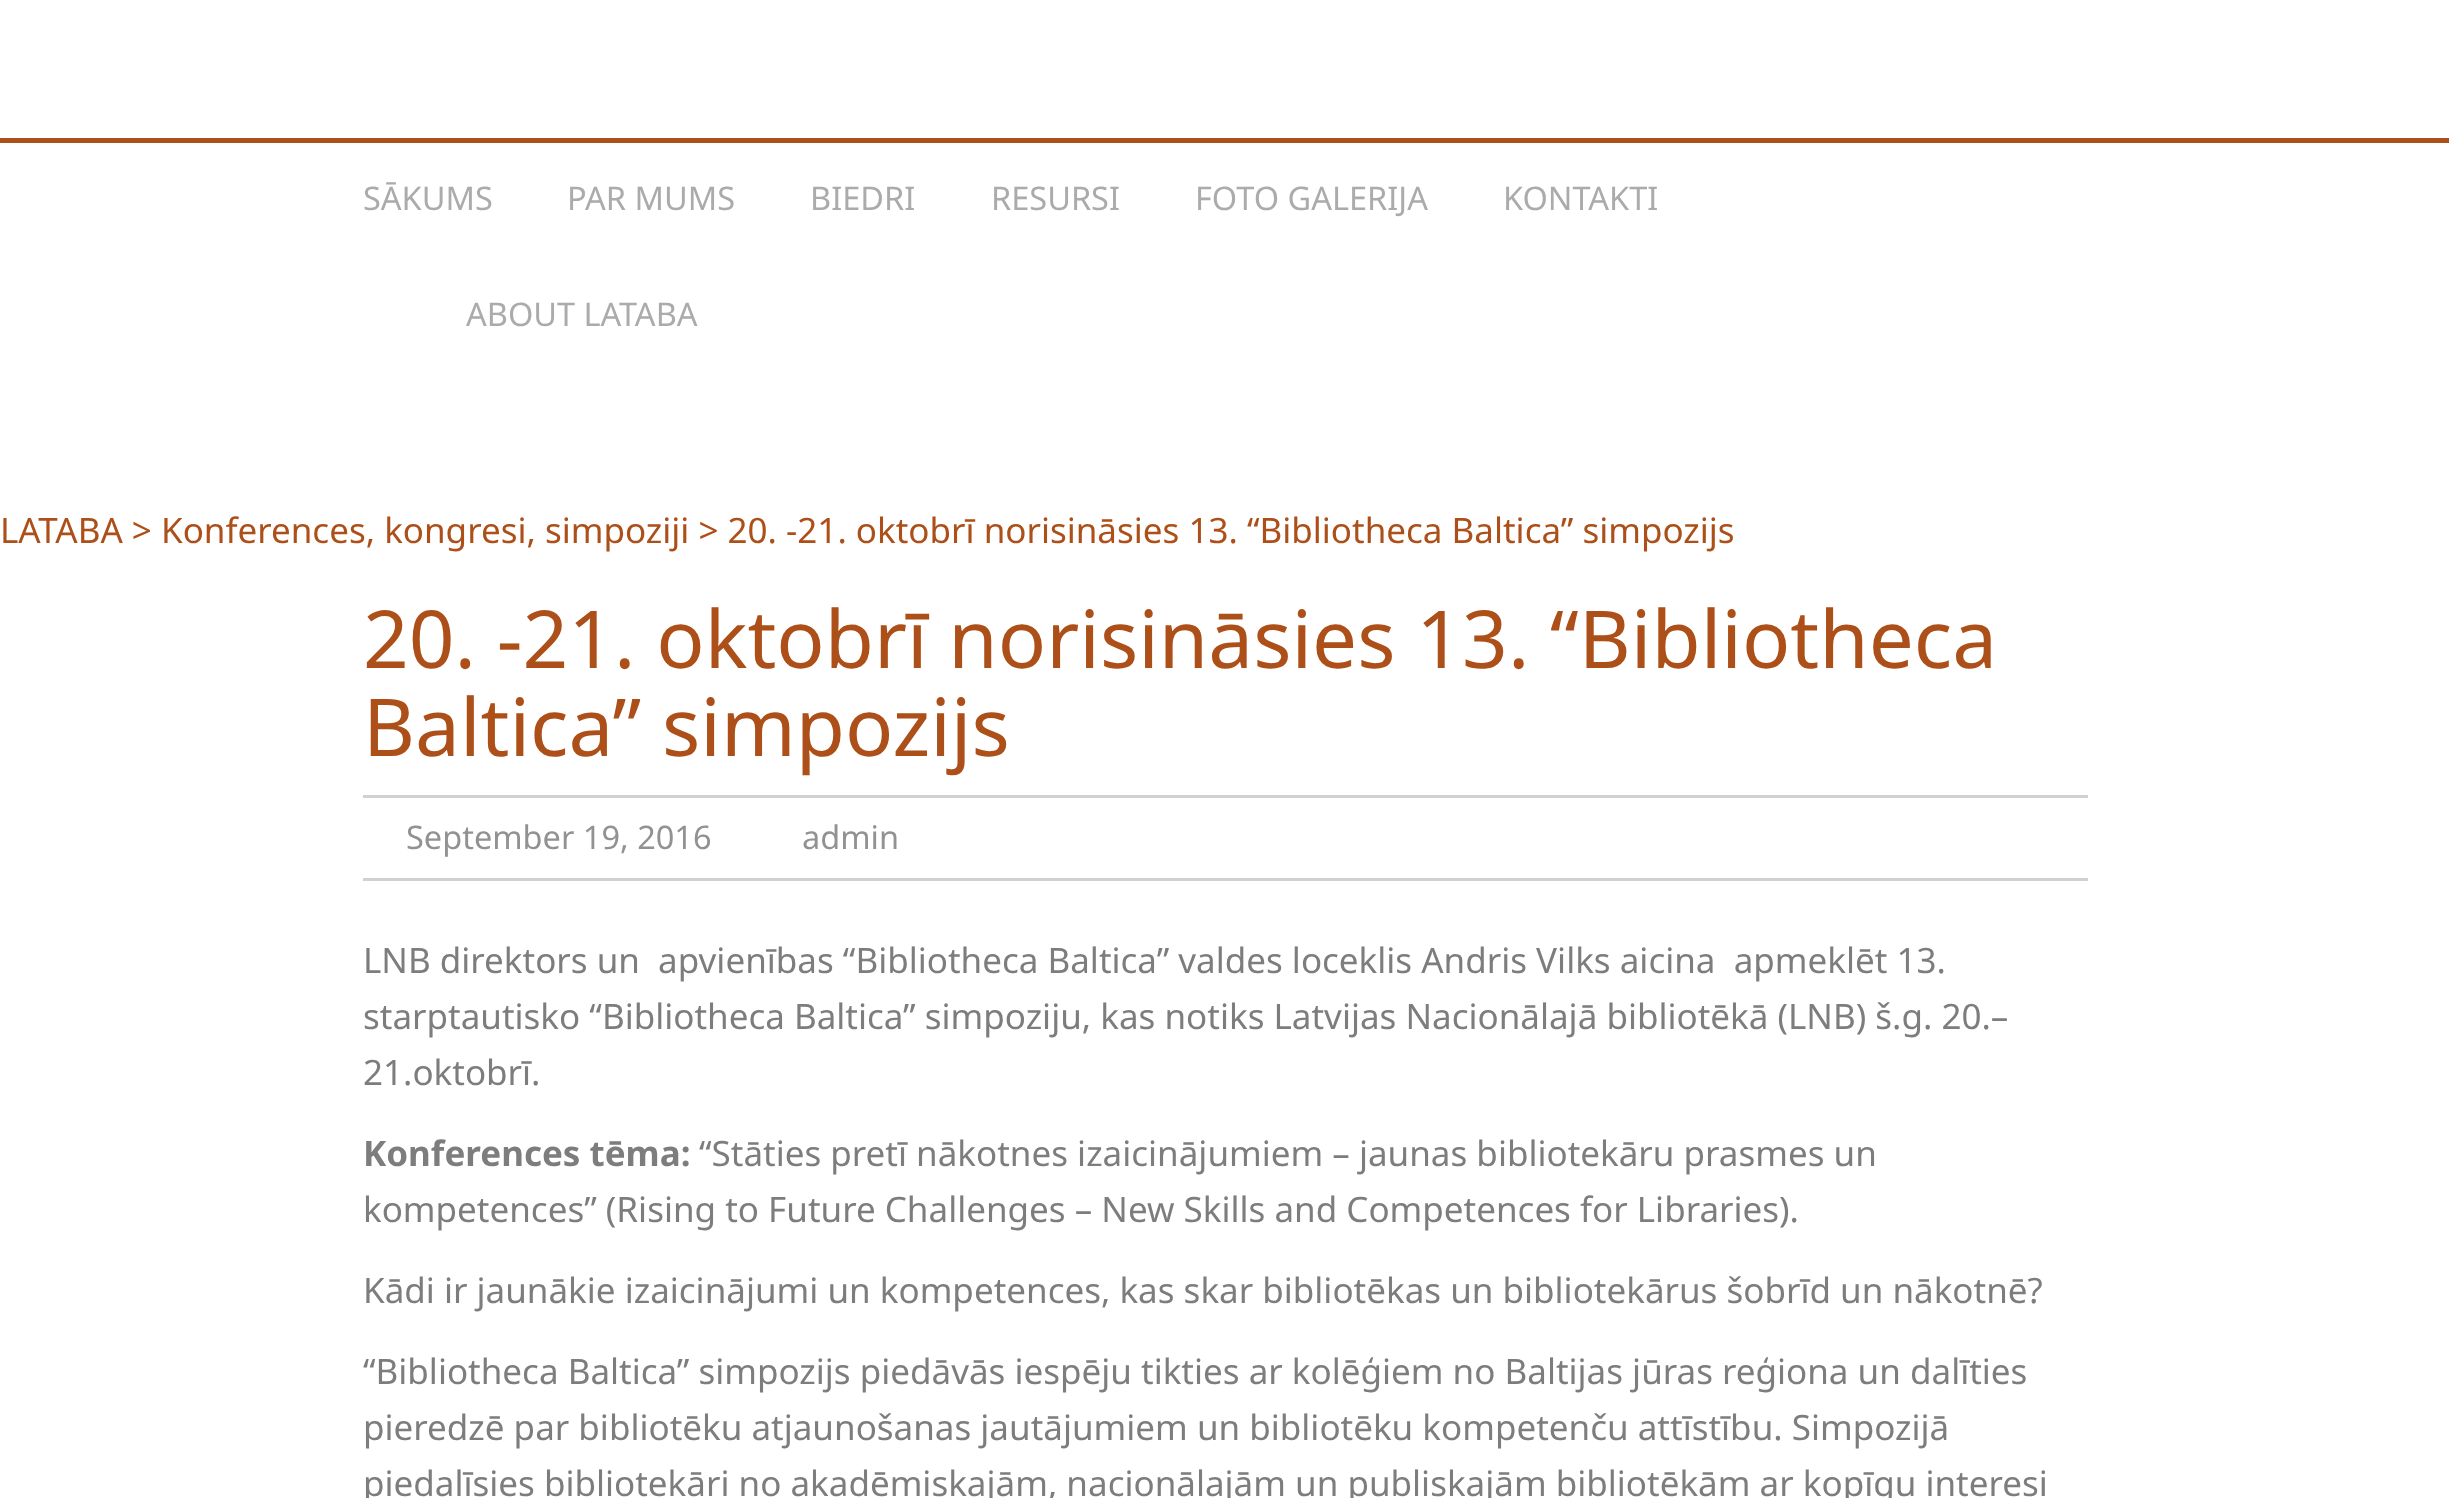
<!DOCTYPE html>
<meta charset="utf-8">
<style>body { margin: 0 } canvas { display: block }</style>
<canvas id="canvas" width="2449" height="1498"></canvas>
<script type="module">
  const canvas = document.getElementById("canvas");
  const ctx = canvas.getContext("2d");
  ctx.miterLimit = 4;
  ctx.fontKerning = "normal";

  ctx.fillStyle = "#ffffff";
  ctx.fillRect(0, 0, 2449, 1498);
  ctx.fillStyle = "#ad4f18";
  ctx.fillRect(0, 138, 2449, 5);
  ctx.font = "32.5px Noto Sans";
  ctx.fillStyle = "#ababab";
  ctx.fillText("SĀKUMS", 363, 210);
  ctx.fillText("PAR MUMS", 567, 210);
  ctx.fillText("BIEDRI", 810, 210);
  ctx.fillText("RESURSI", 991, 210);
  ctx.fillText("FOTO GALERIJA", 1195, 210);
  ctx.fillText("KONTAKTI", 1503, 210);
  ctx.fillText("ABOUT LATABA", 466, 326);
  ctx.font = "35px Noto Sans";
  ctx.fillStyle = "#ad4f18";
  ctx.fillText("LATABA > Konferences, kongresi, simpoziji > 20. -21. oktobrī norisināsies 13. “Bibliotheca Baltica” simpozijs", 0, 543);
  ctx.font = "80px Noto Sans";
  ctx.fillText("20. -21. oktobrī norisināsies 13. “Bibliotheca", 363, 668);
  ctx.fillText("Baltica” simpozijs", 363, 756);
  ctx.fillStyle = "#d1d1d1";
  ctx.fillRect(363, 795, 1725, 3);
  ctx.fillRect(363, 878, 1725, 3);
  ctx.font = "32.5px Noto Sans";
  ctx.fillStyle = "#929292";
  ctx.fillText("September 19, 2016", 406, 849);
  ctx.fillText("admin", 802, 849);
  ctx.font = "35px Noto Sans";
  ctx.fillStyle = "#7d7d7d";
  ctx.fillText("LNB direktors un  apvienības “Bibliotheca Baltica” valdes loceklis Andris Vilks aicina  apmeklēt 13.", 363, 973);
  ctx.fillText("starptautisko “Bibliotheca Baltica” simpoziju, kas notiks Latvijas Nacionālajā bibliotēkā (LNB) š.g. 20.–", 363, 1029);
  ctx.fillText("21.oktobrī.", 363, 1085);
  ctx.font = "bold 35px Noto Sans";
  ctx.fillText("Konferences tēma:", 363, 1166);
  ctx.font = "35px Noto Sans";
  ctx.fillText("“Stāties pretī nākotnes izaicinājumiem – jaunas bibliotekāru prasmes un", 699, 1166);
  ctx.fillText("kompetences” (Rising to Future Challenges – New Skills and Competences for Libraries).", 363, 1222);
  ctx.fillText("Kādi ir jaunākie izaicinājumi un kompetences, kas skar bibliotēkas un bibliotekārus šobrīd un nākotnē?", 363, 1303);
  ctx.fillText("“Bibliotheca Baltica” simpozijs piedāvās iespēju tikties ar kolēģiem no Baltijas jūras reģiona un dalīties", 363, 1384);
  ctx.fillText("pieredzē par bibliotēku atjaunošanas jautājumiem un bibliotēku kompetenču attīstību. Simpozijā", 363, 1440);
  ctx.fillText("piedalīsies bibliotekāri no akadēmiskajām, nacionālajām un publiskajām bibliotēkām ar kopīgu interesi", 363, 1496);
</script>
